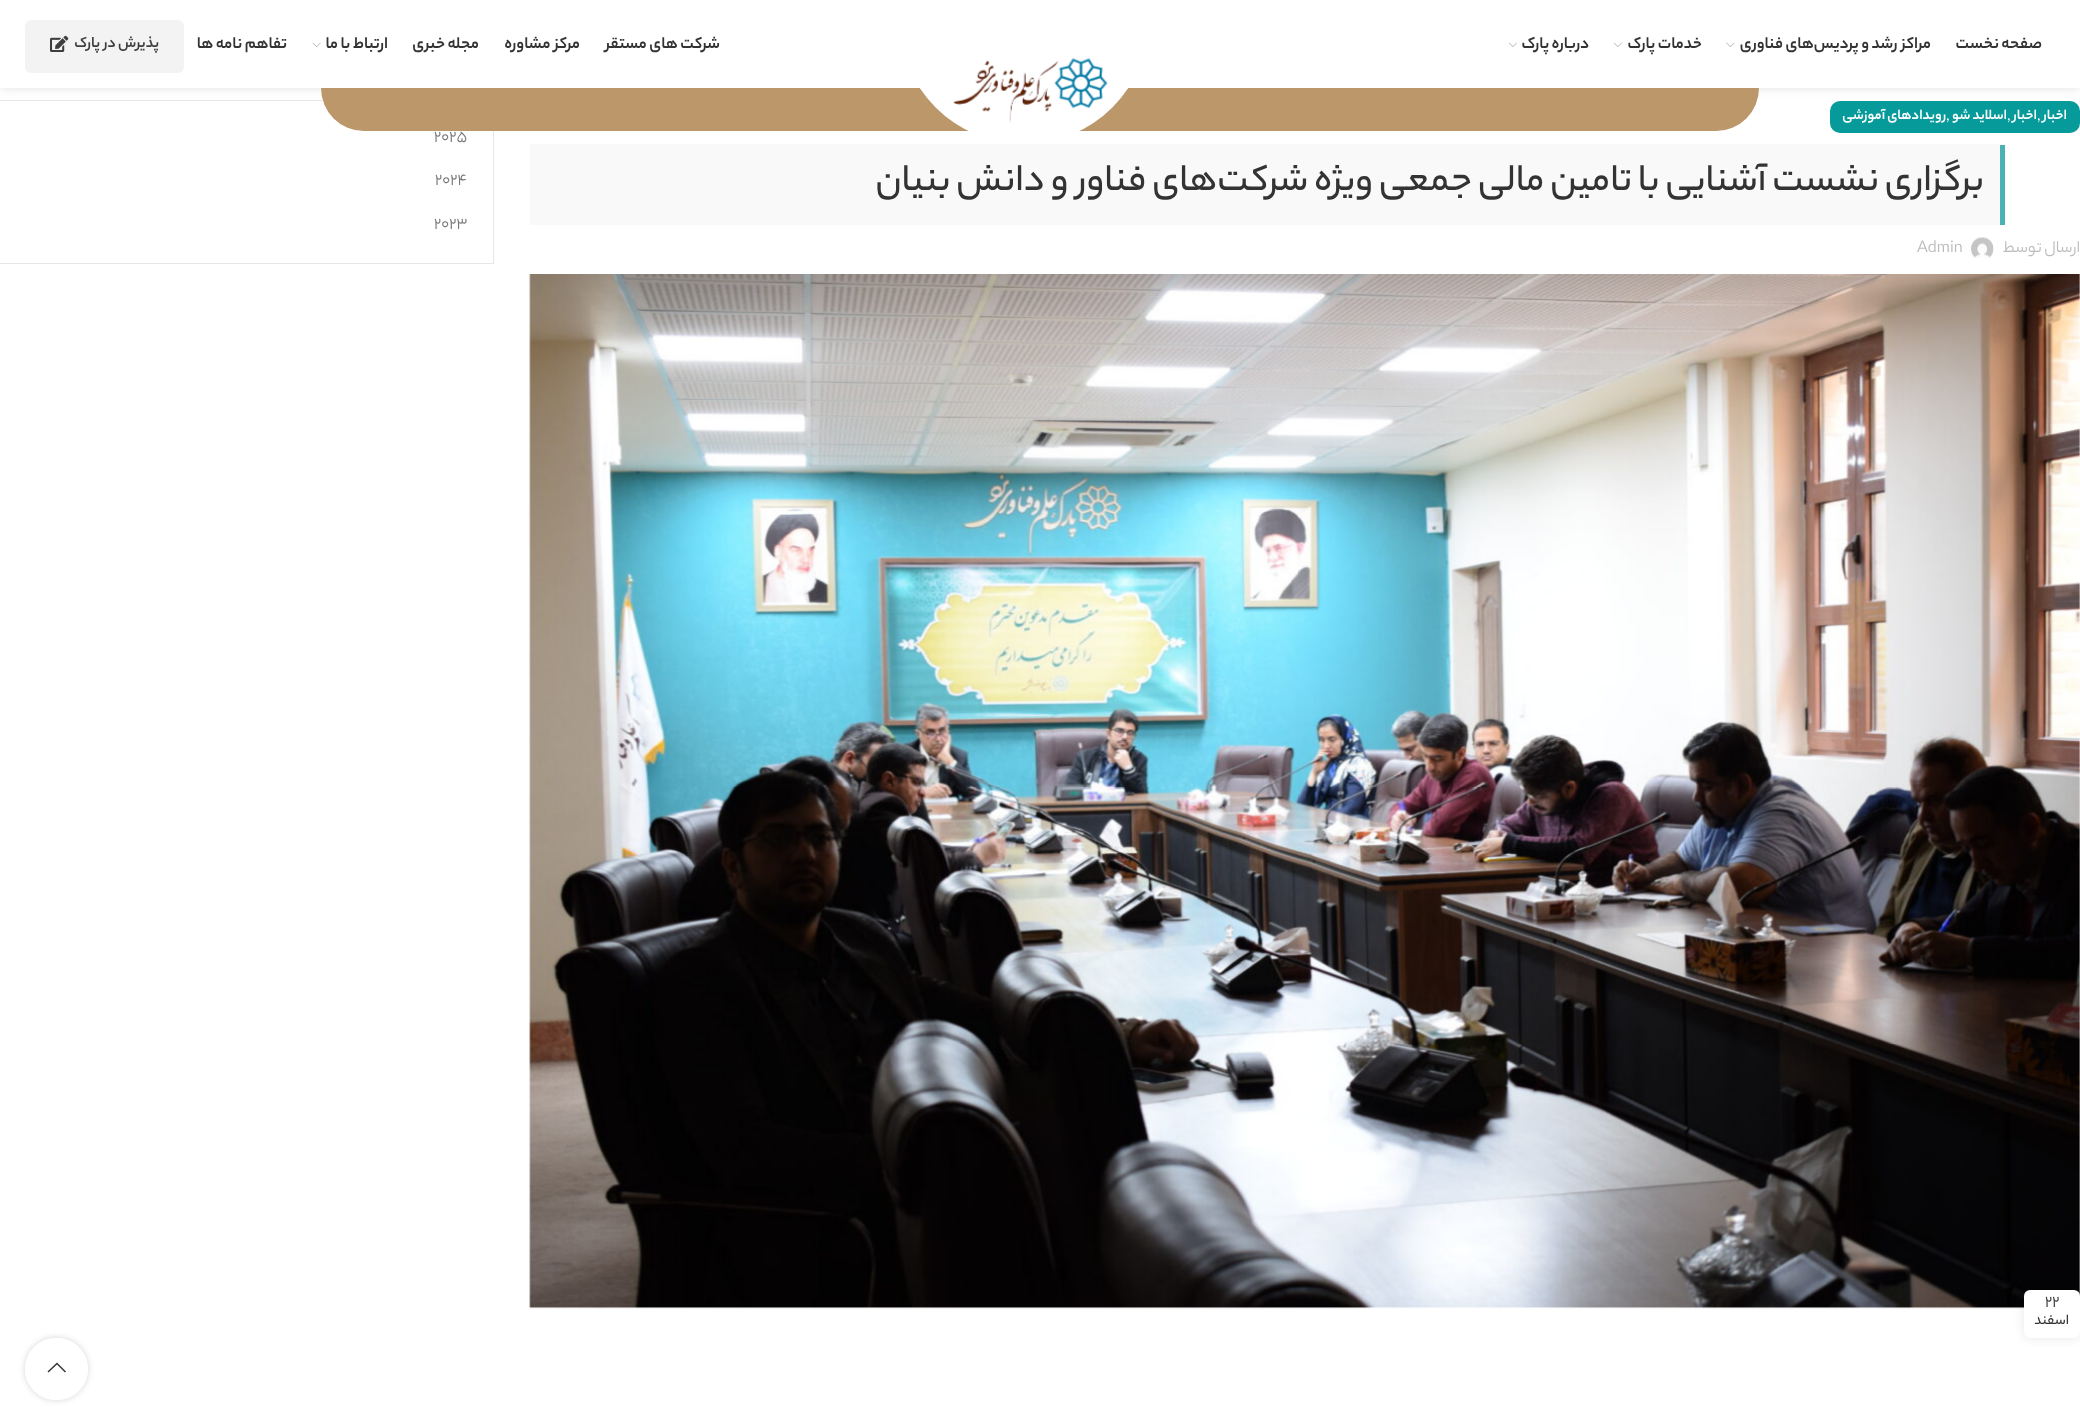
<!DOCTYPE html>
<meta charset="utf-8">
<style>body { margin: 0 } canvas { display: block }</style>
<canvas id="canvas" width="2080" height="1424"></canvas>
<script type="module">
  const canvas = document.getElementById("canvas");
  const ctx = canvas.getContext("2d");
  ctx.miterLimit = 4;
  ctx.fontKerning = "normal";
  async function loadImage(src) {
    const img = new Image();
    img.src = src;
    await img.decode();
    return img;
  }

  ctx.fillStyle = "#ffffff";
  ctx.fillRect(0, 0, 2080, 1424);
  ctx.fillStyle = "#069a9a";
  ctx.beginPath();
  ctx.roundRect(1830, 101, 250, 32, 10);
  ctx.fill();
  ctx.fillStyle = "rgba(0, 0, 0, 0.1)";
  ctx.filter = "blur(5px)";
  ctx.beginPath();
  ctx.rect(0, 1, 2080, 88);
  ctx.fill();
  ctx.filter = "none";
  ctx.fillStyle = "#ffffff";
  ctx.fillRect(0, 0, 2080, 88);
  ctx.direction = "rtl";
  ctx.font = "bold 17.5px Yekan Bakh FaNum";
  ctx.fillStyle = "#333333";
  ctx.fillText("صفحه نخست", 2042, 48);
  ctx.fillText("مراکز رشد و پردیس‌های فناوری", 1931, 48);
  ctx.drawImage(await loadImage("img1.png"), 1726, 42, 9, 5);
  ctx.fillText("خدمات پارک", 1702, 48);
  ctx.drawImage(await loadImage("img2.png"), 1614, 42, 8, 5);
  ctx.fillText("درباره پارک", 1589, 48);
  ctx.drawImage(await loadImage("img2.png"), 1509, 42, 8, 5);
  ctx.save();
  ctx.beginPath();
  ctx.moveTo(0, 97);
  ctx.lineTo(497, 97);
  ctx.lineTo(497, 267);
  ctx.lineTo(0, 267);
  ctx.closePath();
  ctx.moveTo(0, 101);
  ctx.lineTo(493, 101);
  ctx.lineTo(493, 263);
  ctx.lineTo(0, 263);
  ctx.closePath();
  ctx.clip("evenodd");
  ctx.fillStyle = "#e6e6e6";
  ctx.filter = "blur(0.5px)";
  ctx.beginPath();
  ctx.rect(-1, 100, 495, 164);
  ctx.fill();
  ctx.filter = "none";
  ctx.restore();
  ctx.fillStyle = "#bb9769";
  ctx.beginPath();
  ctx.roundRect(321, 88, 1438, 43, [0, 0, 43, 43]);
  ctx.fill();
  ctx.fillStyle = "#ffffff";
  ctx.beginPath();
  ctx.arc(1024, 19, 125, 0, Math.PI * 2);
  ctx.fill();
  ctx.drawImage(await loadImage("img3.png"), 953, 57, 155, 67);
  ctx.fillStyle = "#333333";
  ctx.fillText("شرکت های مستقر", 720, 48);
  ctx.fillText("مرکز مشاوره", 580, 48);
  ctx.fillText("مجله خبری", 479, 48);
  ctx.fillText("ارتباط با ما", 388, 48);
  ctx.drawImage(await loadImage("img4.png"), 312, 42, 9, 5);
  ctx.fillText("تفاهم نامه ها", 287, 48);
  ctx.fillStyle = "#f3f3f3";
  ctx.beginPath();
  ctx.roundRect(25, 20, 159, 53, 6);
  ctx.fill();
  ctx.font = "bold 16.25px Yekan Bakh FaNum";
  ctx.fillStyle = "#3e3e3e";
  ctx.fillText("پذیرش در پارک", 159, 47);
  ctx.drawImage(await loadImage("img5.png"), 50, 35, 19, 17);
  ctx.font = "bold 15px Yekan Bakh FaNum";
  ctx.fillStyle = "#ffffff";
  ctx.fillText("اخبار", 2067, 119);
  ctx.direction = "ltr";
  ctx.font = "17.5px Yekan Bakh FaNum";
  ctx.fillText(",", 2037, 120);
  ctx.direction = "rtl";
  ctx.font = "bold 15px Yekan Bakh FaNum";
  ctx.fillText("اخبار", 2037, 119);
  ctx.direction = "ltr";
  ctx.font = "17.5px Yekan Bakh FaNum";
  ctx.fillText(",", 2007, 120);
  ctx.direction = "rtl";
  ctx.font = "bold 15px Yekan Bakh FaNum";
  ctx.fillText("اسلاید شو", 2007, 119);
  ctx.direction = "ltr";
  ctx.font = "17.5px Yekan Bakh FaNum";
  ctx.fillText(",", 1946, 120);
  ctx.direction = "rtl";
  ctx.font = "bold 15px Yekan Bakh FaNum";
  ctx.fillText("رویدادهای آموزشی", 1946, 119);
  ctx.fillStyle = "rgba(244, 244, 244, 0.57)";
  ctx.beginPath();
  ctx.roundRect(530, 144, 1475, 81, 1);
  ctx.fill();
  ctx.fillStyle = "#4bb2b4";
  ctx.fillRect(2000, 145, 5, 80);
  ctx.font = "500 40px Yekan Bakh FaNum";
  ctx.fillStyle = "#333333";
  ctx.fillText("برگزاری نشست آشنایی با تامین مالی جمعی ویژه شرکت‌های فناور و دانش بنیان", 1984, 190);
  ctx.font = "17.5px Yekan Bakh FaNum";
  ctx.fillStyle = "#bbbbbb";
  ctx.fillText("ارسال توسط", 2080, 252);
  ctx.drawImage(await loadImage("img6.png"), 1971, 237, 23, 21);
  ctx.direction = "ltr";
  ctx.fillText("Admin", 1917, 252);
  ctx.drawImage(await loadImage("img7.png"), 529, 274, 1551, 1035);
  ctx.fillStyle = "rgba(0, 0, 0, 0.1)";
  ctx.filter = "blur(5.5px)";
  ctx.beginPath();
  ctx.roundRect(2024, 1290, 56, 48, 6);
  ctx.fill();
  ctx.filter = "none";
  ctx.fillStyle = "#ffffff";
  ctx.beginPath();
  ctx.roundRect(2024, 1290, 56, 48, 6);
  ctx.fill();
  ctx.fillStyle = "#333333";
  ctx.fillText("22", 2045, 1306);
  ctx.direction = "rtl";
  ctx.font = "500 15px Yekan Bakh FaNum";
  ctx.fillText("اسفند", 2069, 1324);
  ctx.direction = "ltr";
  ctx.font = "17.5px Yekan Bakh FaNum";
  ctx.fillStyle = "#777777";
  ctx.fillText("2025", 434, 141);
  ctx.fillText("2024", 435, 184);
  ctx.fillText("2023", 434, 228);
  ctx.save();
  ctx.beginPath();
  ctx.moveTo(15, 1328);
  ctx.lineTo(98, 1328);
  ctx.lineTo(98, 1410);
  ctx.lineTo(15, 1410);
  ctx.closePath();
  ctx.moveTo(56, 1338);
  ctx.lineTo(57, 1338);
  ctx.bezierCurveTo(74, 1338, 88, 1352, 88, 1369);
  ctx.bezierCurveTo(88, 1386, 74, 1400, 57, 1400);
  ctx.lineTo(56, 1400);
  ctx.bezierCurveTo(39, 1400, 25, 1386, 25, 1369);
  ctx.bezierCurveTo(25, 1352, 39, 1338, 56, 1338);
  ctx.closePath();
  ctx.clip("evenodd");
  ctx.fillStyle = "rgba(0, 0, 0, 0.17)";
  ctx.filter = "blur(3px)";
  ctx.beginPath();
  ctx.roundRect(25, 1338, 63, 62, 31);
  ctx.fill();
  ctx.filter = "none";
  ctx.restore();
  ctx.fillStyle = "rgba(255, 255, 255, 0.9)";
  ctx.beginPath();
  ctx.roundRect(25, 1338, 63, 62, 31);
  ctx.fill();
  ctx.fillStyle = "#333333";
  ctx.beginPath();
  ctx.moveTo(65, 1372.5);
  ctx.lineTo(66, 1371.5);
  ctx.lineTo(57, 1362.5);
  ctx.lineTo(47.5, 1371.5);
  ctx.lineTo(48.5, 1372.5);
  ctx.lineTo(57, 1364.5);
  ctx.closePath();
  ctx.fill();
</script>
